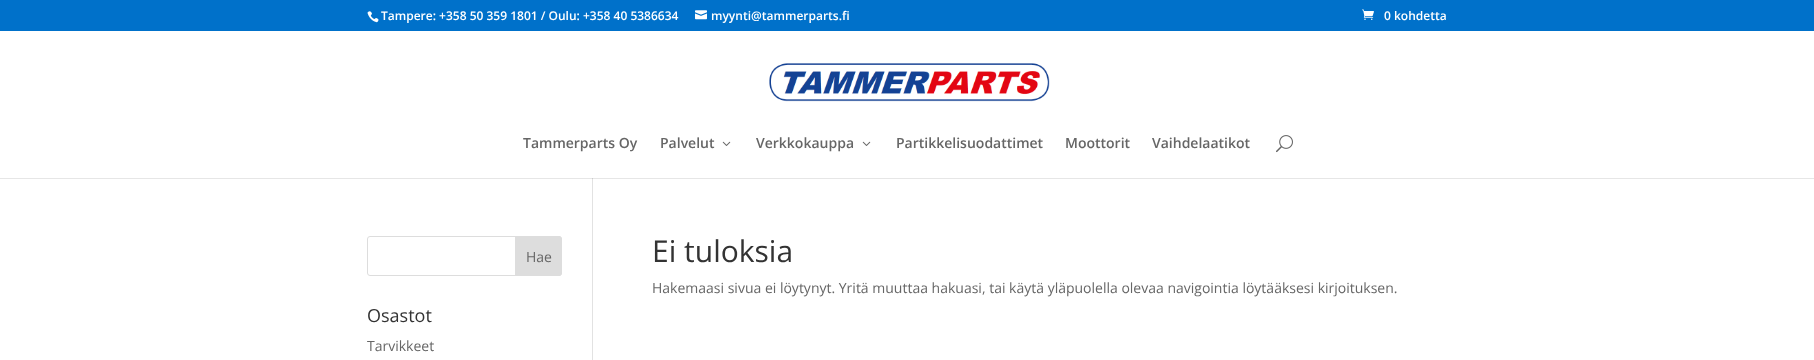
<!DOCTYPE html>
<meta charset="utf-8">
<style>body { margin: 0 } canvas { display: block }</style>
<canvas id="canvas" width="1814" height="360"></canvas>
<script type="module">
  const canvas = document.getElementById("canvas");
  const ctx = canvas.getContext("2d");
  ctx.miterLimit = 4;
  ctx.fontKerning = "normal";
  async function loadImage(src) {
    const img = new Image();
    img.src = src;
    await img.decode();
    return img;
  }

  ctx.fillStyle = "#ffffff";
  ctx.fillRect(0, 0, 1814, 360);
  ctx.fillStyle = "#e6e6e6";
  ctx.fillRect(0, 178, 1814, 1);
  ctx.fillStyle = "#0071ca";
  ctx.fillRect(0, 0, 1814, 31);
  ctx.drawImage(await loadImage("img1.png"), 367, 11, 12, 12);
  ctx.font = "600 12px Open Sans";
  ctx.fillStyle = "#ffffff";
  ctx.fillText("Tampere: +358 50 359 1801 / Oulu: +358 40 5386634", 381, 20);
  ctx.drawImage(await loadImage("img2.png"), 695, 10, 12, 10);
  ctx.fillText("myynti@tammerparts.fi", 711, 20);
  ctx.drawImage(await loadImage("img3.png"), 1362, 9, 12, 11);
  ctx.fillText("0 kohdetta", 1384, 20);
  ctx.drawImage(await loadImage("img4.png"), 769, 63, 281, 39);
  ctx.font = "600 14px Open Sans";
  ctx.fillStyle = "#666666";
  ctx.fillText("Tammerparts Oy", 523, 148);
  ctx.fillText("Palvelut", 660, 148);
  ctx.drawImage(await loadImage("img5.png"), 722, 141, 9, 5);
  ctx.fillText("Verkkokauppa", 756, 148);
  ctx.drawImage(await loadImage("img5.png"), 862, 141, 9, 5);
  ctx.fillText("Partikkelisuodattimet", 896, 148);
  ctx.fillText("Moottorit", 1065, 148);
  ctx.fillText("Vaihdelaatikot", 1152, 148);
  ctx.drawImage(await loadImage("img6.png"), 1276, 135, 17, 18);
  ctx.fillStyle = "#e2e2e2";
  ctx.fillRect(592, 178, 1, 182);
  ctx.fillStyle = "#cbcbcb";
  ctx.fillRect(592, 178, 1, 1);
  ctx.beginPath();
  ctx.roundRect(367.5, 236.5, 194, 39, 2.5);
  ctx.strokeStyle = "#dddddd";
  ctx.stroke();
  ctx.fillStyle = "#dddddd";
  ctx.beginPath();
  ctx.roundRect(515.5, 236.5, 46, 39, [0, 2.5, 2.5, 0]);
  ctx.fill();
  ctx.stroke();
  ctx.font = "14px Open Sans";
  ctx.fillStyle = "#666666";
  ctx.fillText("Hae", 526, 262);
  ctx.font = "18px Open Sans";
  ctx.fillStyle = "#333333";
  ctx.fillText("Osastot", 367, 322);
  ctx.font = "14px Open Sans";
  ctx.fillStyle = "#666666";
  ctx.fillText("Tarvikkeet", 367, 351);
  ctx.font = "30px Open Sans";
  ctx.fillStyle = "#333333";
  ctx.fillText("Ei tuloksia", 652, 262);
  ctx.font = "14px Open Sans";
  ctx.fillStyle = "#666666";
  ctx.fillText("Hakemaasi sivua ei löytynyt. Yritä muuttaa hakuasi, tai käytä yläpuolella olevaa navigointia löytääksesi kirjoituksen.", 652, 293);
</script>
